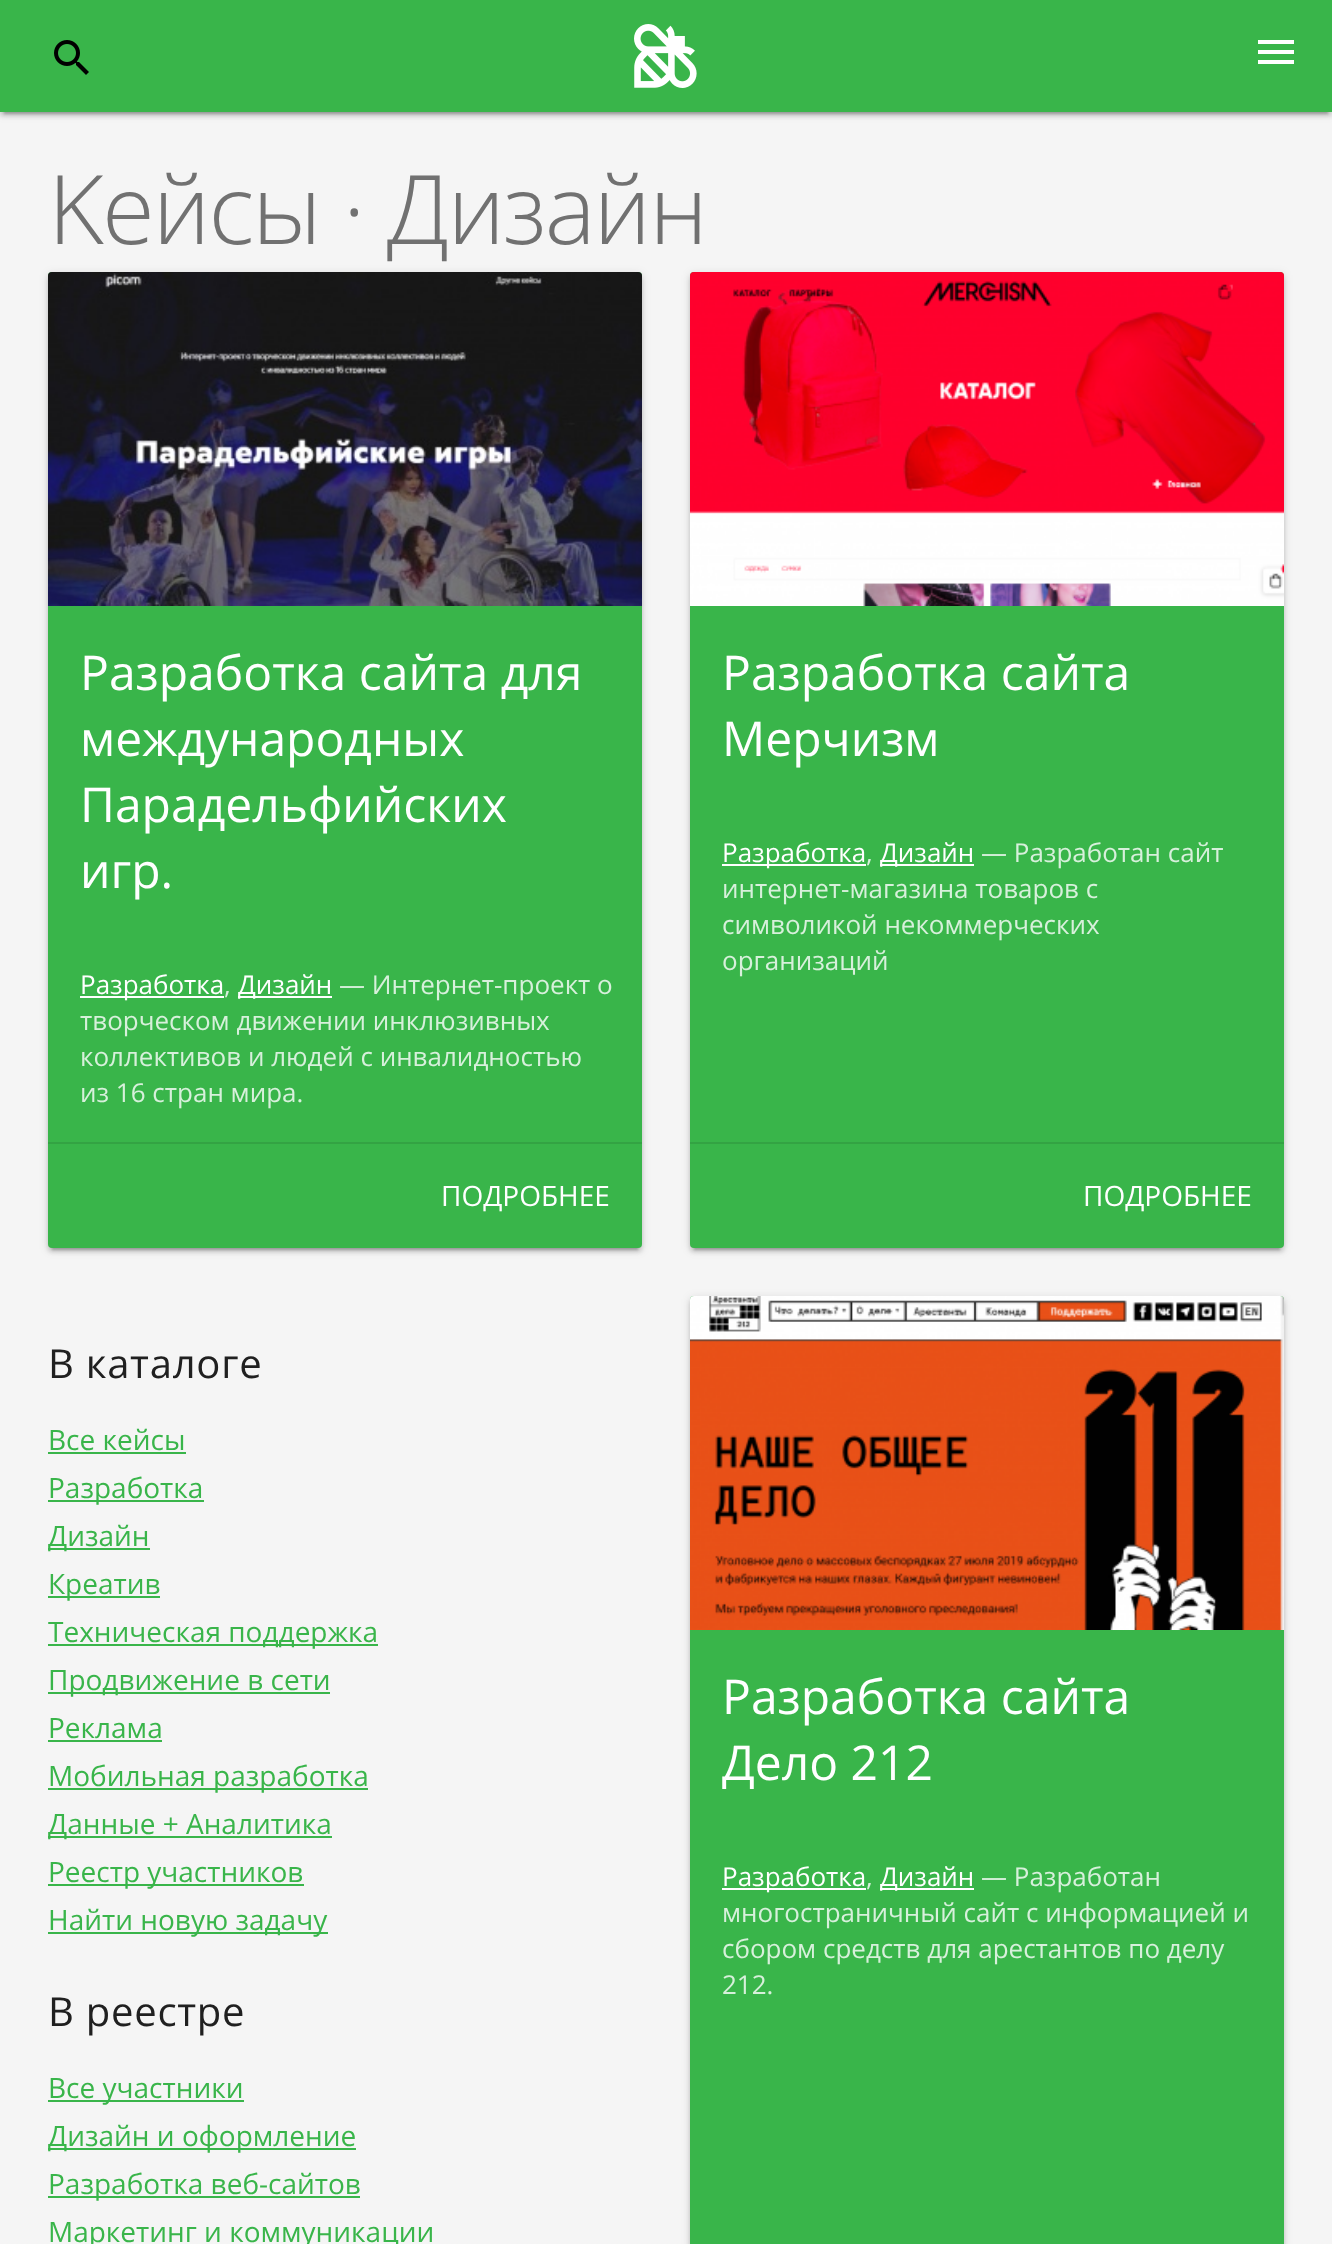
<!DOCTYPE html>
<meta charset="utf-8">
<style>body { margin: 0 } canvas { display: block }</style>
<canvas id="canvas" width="1332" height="2244"></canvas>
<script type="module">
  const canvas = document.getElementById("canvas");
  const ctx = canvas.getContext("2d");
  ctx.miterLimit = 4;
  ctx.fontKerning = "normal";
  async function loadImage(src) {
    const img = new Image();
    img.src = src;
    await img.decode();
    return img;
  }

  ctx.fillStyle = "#f5f5f5";
  ctx.fillRect(0, 0, 1332, 2244);
  ctx.fillStyle = "rgba(0, 0, 0, 0.12)";
  ctx.filter = "blur(5px)";
  ctx.beginPath();
  ctx.rect(0, 2, 1332, 112);
  ctx.fill();
  ctx.filter = "none";
  ctx.fillStyle = "rgba(0, 0, 0, 0.2)";
  ctx.filter = "blur(1px)";
  ctx.beginPath();
  ctx.rect(4, 10, 1324, 104);
  ctx.fill();
  ctx.filter = "none";
  ctx.fillStyle = "rgba(0, 0, 0, 0.14)";
  ctx.filter = "blur(2px)";
  ctx.beginPath();
  ctx.rect(0, 4, 1332, 112);
  ctx.fill();
  ctx.filter = "none";
  ctx.fillStyle = "#39b54a";
  ctx.fillRect(0, 0, 1332, 112);
  ctx.drawImage(await loadImage("img1.png"), 54, 40, 35, 35);
  ctx.drawImage(await loadImage("img2.png"), 634, 24, 63, 64);
  ctx.fillStyle = "#ffffff";
  ctx.beginPath();
  ctx.moveTo(1258, 40);
  ctx.lineTo(1294, 40);
  ctx.lineTo(1294, 44);
  ctx.lineTo(1258, 44);
  ctx.closePath();
  ctx.moveTo(1258, 54);
  ctx.lineTo(1258, 50);
  ctx.lineTo(1294, 50);
  ctx.lineTo(1294, 54);
  ctx.closePath();
  ctx.moveTo(1258, 64);
  ctx.lineTo(1258, 60);
  ctx.lineTo(1294, 60);
  ctx.lineTo(1294, 64);
  ctx.closePath();
  ctx.fill();
  ctx.letterSpacing = "-1.9px";
  ctx.font = "300 96px Open Sans";
  ctx.fillStyle = "#717171";
  ctx.fillText("Kейсы · Дизайн", 48, 244);
  ctx.fillStyle = "rgba(0, 0, 0, 0.12)";
  ctx.filter = "blur(5px)";
  ctx.beginPath();
  ctx.roundRect(48, 274, 594, 976, 4);
  ctx.fill();
  ctx.filter = "none";
  ctx.fillStyle = "rgba(0, 0, 0, 0.2)";
  ctx.filter = "blur(1px)";
  ctx.beginPath();
  ctx.rect(52, 282, 586, 968);
  ctx.fill();
  ctx.filter = "none";
  ctx.fillStyle = "rgba(0, 0, 0, 0.14)";
  ctx.filter = "blur(2px)";
  ctx.beginPath();
  ctx.roundRect(48, 276, 594, 976, 4);
  ctx.fill();
  ctx.filter = "none";
  ctx.fillStyle = "#39b54a";
  ctx.beginPath();
  ctx.roundRect(48, 272, 594, 976, 4);
  ctx.fill();
  ctx.drawImage(await loadImage("img3.png"), 48, 272, 594, 334);
  ctx.letterSpacing = "0px";
  ctx.font = "48px Open Sans";
  ctx.fillStyle = "#ffffff";
  ctx.fillText("Разработка сайта для", 80, 690);
  ctx.fillText("международных", 80, 756);
  ctx.fillText("Парадельфийских", 80, 822);
  ctx.fillText("игр.", 80, 888);
  ctx.fillRect(80, 996, 144, 2);
  ctx.font = "26px Open Sans";
  ctx.fillText("Разработка", 80, 994);
  ctx.fillStyle = "#d7f0db";
  ctx.fillText(",", 224, 994);
  ctx.fillStyle = "#ffffff";
  ctx.fillRect(238, 996, 94, 2);
  ctx.fillText("Дизайн", 238, 994);
  ctx.fillStyle = "#d7f0db";
  ctx.fillText("— Интернет-проект о", 339, 994);
  ctx.fillText("творческом движении инклюзивных", 80, 1030);
  ctx.fillText("коллективов и людей с инвалидностью", 80, 1066);
  ctx.fillText("из 16 стран мира.", 80, 1102);
  ctx.fillStyle = "#33a343";
  ctx.fillRect(48, 1142, 594, 2);
  ctx.font = "28px Open Sans";
  ctx.fillStyle = "#ffffff";
  ctx.fillText("ПОДРОБНЕЕ", 441, 1206);
  ctx.fillStyle = "rgba(0, 0, 0, 0.12)";
  ctx.filter = "blur(5px)";
  ctx.beginPath();
  ctx.roundRect(690, 274, 594, 976, 4);
  ctx.fill();
  ctx.filter = "none";
  ctx.fillStyle = "rgba(0, 0, 0, 0.2)";
  ctx.filter = "blur(1px)";
  ctx.beginPath();
  ctx.rect(694, 282, 586, 968);
  ctx.fill();
  ctx.filter = "none";
  ctx.fillStyle = "rgba(0, 0, 0, 0.14)";
  ctx.filter = "blur(2px)";
  ctx.beginPath();
  ctx.roundRect(690, 276, 594, 976, 4);
  ctx.fill();
  ctx.filter = "none";
  ctx.fillStyle = "#39b54a";
  ctx.beginPath();
  ctx.roundRect(690, 272, 594, 976, 4);
  ctx.fill();
  ctx.drawImage(await loadImage("img4.png"), 690, 272, 594, 334);
  ctx.font = "48px Open Sans";
  ctx.fillStyle = "#ffffff";
  ctx.fillText("Разработка сайта", 722, 690);
  ctx.fillText("Мерчизм", 722, 756);
  ctx.fillRect(722, 864, 144, 2);
  ctx.font = "26px Open Sans";
  ctx.fillText("Разработка", 722, 862);
  ctx.fillStyle = "#d7f0db";
  ctx.fillText(",", 866, 862);
  ctx.fillStyle = "#ffffff";
  ctx.fillRect(880, 864, 94, 2);
  ctx.fillText("Дизайн", 880, 862);
  ctx.fillStyle = "#d7f0db";
  ctx.fillText("— Разработан сайт", 981, 862);
  ctx.fillText("интернет-магазина товаров с", 722, 898);
  ctx.fillText("символикой некоммерческих", 722, 934);
  ctx.fillText("организаций", 722, 970);
  ctx.fillStyle = "#33a343";
  ctx.fillRect(690, 1142, 594, 2);
  ctx.font = "28px Open Sans";
  ctx.fillStyle = "#ffffff";
  ctx.fillText("ПОДРОБНЕЕ", 1083, 1206);
  ctx.letterSpacing = "0.75px";
  ctx.font = "40px Open Sans";
  ctx.fillStyle = "#202020";
  ctx.fillText("В каталоге", 48, 1378);
  ctx.letterSpacing = "0px";
  ctx.font = "28px Open Sans";
  ctx.fillStyle = "#39b54a";
  ctx.fillText("Все кейсы", 48, 1450);
  ctx.fillRect(48, 1452, 138, 2);
  ctx.fillRect(48, 1500, 156, 2);
  ctx.fillText("Разработка", 48, 1498);
  ctx.fillRect(48, 1548, 102, 2);
  ctx.fillText("Дизайн", 48, 1546);
  ctx.fillRect(48, 1596, 112, 2);
  ctx.fillText("Креатив", 48, 1594);
  ctx.fillRect(48, 1644, 330, 2);
  ctx.fillText("Техническая поддержка", 48, 1642);
  ctx.fillRect(48, 1692, 282, 2);
  ctx.fillText("Продвижение в сети", 48, 1690);
  ctx.fillText("Реклама", 48, 1738);
  ctx.fillRect(48, 1740, 114, 2);
  ctx.fillRect(48, 1788, 320, 2);
  ctx.fillText("Мобильная разработка", 48, 1786);
  ctx.fillRect(48, 1836, 284, 2);
  ctx.fillText("Данные + Аналитика", 48, 1834);
  ctx.fillRect(48, 1884, 256, 2);
  ctx.fillText("Реестр участников", 48, 1882);
  ctx.fillRect(48, 1932, 280, 2);
  ctx.fillText("Найти новую задачу", 48, 1930);
  ctx.letterSpacing = "0.75px";
  ctx.font = "40px Open Sans";
  ctx.fillStyle = "#202020";
  ctx.fillText("В реестре", 48, 2026);
  ctx.fillStyle = "#39b54a";
  ctx.fillRect(48, 2100, 196, 2);
  ctx.letterSpacing = "0px";
  ctx.font = "28px Open Sans";
  ctx.fillText("Все участники", 48, 2098);
  ctx.fillRect(48, 2148, 308, 2);
  ctx.fillText("Дизайн и оформление", 48, 2146);
  ctx.fillRect(48, 2196, 312, 2);
  ctx.fillText("Разработка веб-сайтов", 48, 2194);
  ctx.fillText("Маркетинг и коммуникации", 48, 2242);
  ctx.fillStyle = "rgba(0, 0, 0, 0.12)";
  ctx.filter = "blur(5px)";
  ctx.beginPath();
  ctx.roundRect(690, 1298, 594, 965, 4);
  ctx.fill();
  ctx.filter = "none";
  ctx.fillStyle = "rgba(0, 0, 0, 0.14)";
  ctx.filter = "blur(2px)";
  ctx.beginPath();
  ctx.roundRect(690, 1300, 594, 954, 4);
  ctx.fill();
  ctx.filter = "none";
  ctx.fillStyle = "#39b54a";
  ctx.beginPath();
  ctx.roundRect(690, 1296, 594, 948, [4, 4, 0, 0]);
  ctx.fill();
  ctx.drawImage(await loadImage("img5.png"), 690, 1296, 594, 334);
  ctx.font = "48px Open Sans";
  ctx.fillStyle = "#ffffff";
  ctx.fillText("Разработка сайта", 722, 1714);
  ctx.fillText("Дело 212", 722, 1780);
  ctx.fillRect(722, 1888, 144, 2);
  ctx.font = "26px Open Sans";
  ctx.fillText("Разработка", 722, 1886);
  ctx.fillStyle = "#d7f0db";
  ctx.fillText(",", 866, 1886);
  ctx.fillStyle = "#ffffff";
  ctx.fillRect(880, 1888, 94, 2);
  ctx.fillText("Дизайн", 880, 1886);
  ctx.fillStyle = "#d7f0db";
  ctx.fillText("— Разработан", 981, 1886);
  ctx.fillText("многостраничный сайт с информацией и", 722, 1922);
  ctx.fillText("сбором средств для арестантов по делу", 722, 1958);
  ctx.fillText("212.", 722, 1994);
</script>
